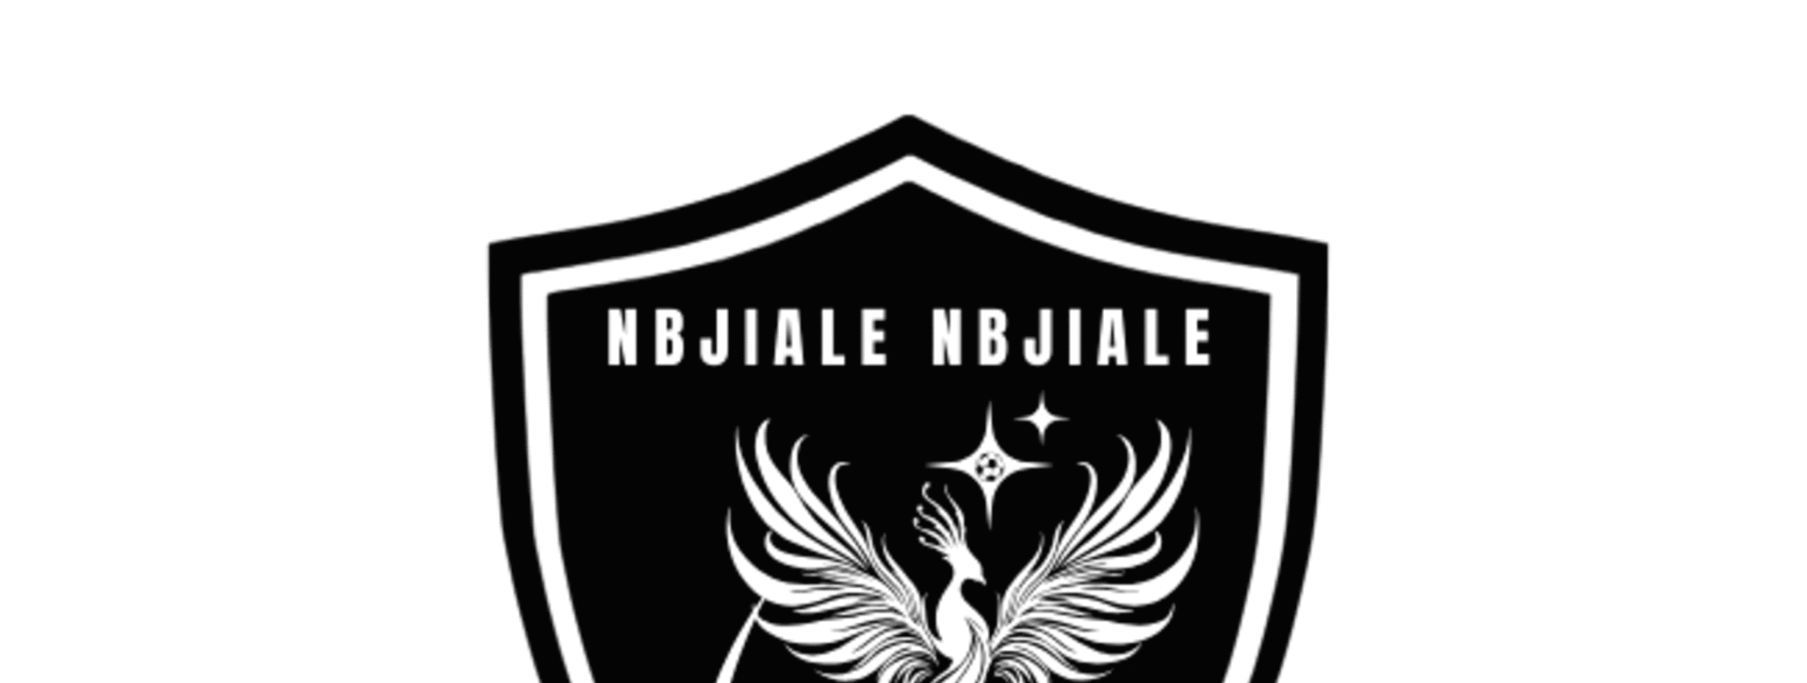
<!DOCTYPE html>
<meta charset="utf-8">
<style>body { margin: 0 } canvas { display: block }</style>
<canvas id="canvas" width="1807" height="683"></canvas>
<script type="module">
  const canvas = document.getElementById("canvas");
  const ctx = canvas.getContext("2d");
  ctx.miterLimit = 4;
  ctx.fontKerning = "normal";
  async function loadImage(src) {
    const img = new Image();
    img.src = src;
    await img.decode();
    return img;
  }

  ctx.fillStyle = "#ffffff";
  ctx.fillRect(0, 0, 1807, 683);
  ctx.drawImage(await loadImage("img1.png"), 485, 113, 847, 570);
</script>
